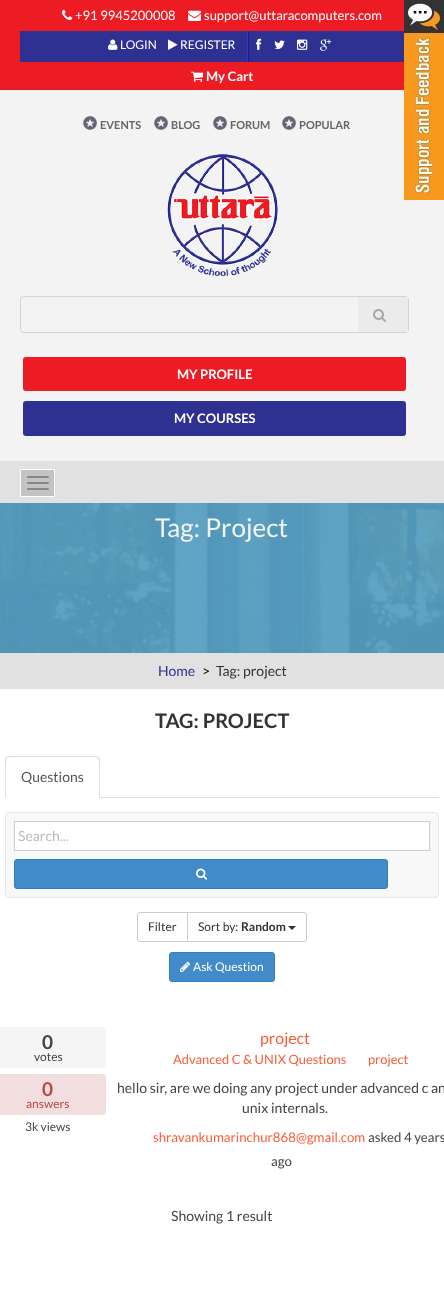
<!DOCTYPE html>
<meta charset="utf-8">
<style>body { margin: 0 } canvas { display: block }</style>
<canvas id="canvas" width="444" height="1289"></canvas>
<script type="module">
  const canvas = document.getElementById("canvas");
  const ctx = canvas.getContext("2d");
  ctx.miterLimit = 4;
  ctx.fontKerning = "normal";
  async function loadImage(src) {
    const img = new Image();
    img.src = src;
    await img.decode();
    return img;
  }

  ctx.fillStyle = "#ffffff";
  ctx.fillRect(0, 0, 444, 1289);
  ctx.fillStyle = "#f3f3f3";
  ctx.fillRect(0, 90, 444, 371);
  ctx.fillStyle = "#ed1c24";
  ctx.fillRect(0, 0, 404, 90);
  ctx.drawImage(await loadImage("img1.png"), 62, 9, 11, 11);
  ctx.font = "13px Lato";
  ctx.fillStyle = "#ffffff";
  ctx.fillText("+91 9945200008", 75, 20);
  ctx.drawImage(await loadImage("img2.png"), 188, 10, 13, 11);
  ctx.fillText("support@uttaracomputers.com", 204, 20);
  ctx.fillStyle = "#2e3192";
  ctx.fillRect(20, 31, 384, 31);
  ctx.drawImage(await loadImage("img3.png"), 108, 39, 10, 11);
  ctx.font = "12px Lato";
  ctx.fillStyle = "#ffffff";
  ctx.fillText("LOGIN", 120, 49);
  ctx.drawImage(await loadImage("img4.png"), 168, 39, 10, 11);
  ctx.fillText("REGISTER", 180, 49);
  ctx.drawImage(await loadImage("img5.png"), 247, 31, 2, 31);
  ctx.drawImage(await loadImage("img6.png"), 256, 38, 6, 12);
  ctx.drawImage(await loadImage("img7.png"), 274, 40, 11, 9);
  ctx.drawImage(await loadImage("img8.png"), 297, 39, 11, 11);
  ctx.drawImage(await loadImage("img9.png"), 320, 39, 12, 12);
  ctx.drawImage(await loadImage("img10.png"), 191, 71, 13, 11);
  ctx.font = "bold 13px Lato";
  ctx.fillText("My Cart", 206, 81);
  ctx.drawImage(await loadImage("img11.png"), 83, 116, 14, 14);
  ctx.font = "bold 11px Lato";
  ctx.fillStyle = "#676767";
  ctx.fillText("EVENTS", 100, 129);
  ctx.drawImage(await loadImage("img11.png"), 154, 116, 14, 14);
  ctx.fillText("BLOG", 171, 129);
  ctx.drawImage(await loadImage("img11.png"), 213, 116, 14, 14);
  ctx.fillText("FORUM", 230, 129);
  ctx.drawImage(await loadImage("img11.png"), 282, 116, 14, 14);
  ctx.fillText("POPULAR", 299, 129);
  ctx.drawImage(await loadImage("img12.png"), 167, 154, 111, 122);
  ctx.beginPath();
  ctx.roundRect(20.5, 296.5, 388, 36, 3.5);
  ctx.strokeStyle = "#d2d4d4";
  ctx.stroke();
  ctx.fillStyle = "#ebebeb";
  ctx.fillRect(358, 297, 50, 35);
  ctx.drawImage(await loadImage("img13.png"), 373, 309, 13, 13);
  ctx.fillStyle = "#ed1c24";
  ctx.beginPath();
  ctx.roundRect(23, 357, 383, 34, 3);
  ctx.fill();
  ctx.font = "bold 13px Lato";
  ctx.fillStyle = "#ffffff";
  ctx.fillText("MY PROFILE", 177, 379);
  ctx.fillStyle = "#2e3192";
  ctx.beginPath();
  ctx.roundRect(23, 401, 383, 35, 3);
  ctx.fill();
  ctx.fillStyle = "#ffffff";
  ctx.fillText("MY COURSES", 174, 423);
  ctx.drawImage(await loadImage("img14.png"), 404, 0, 40, 200);
  ctx.fillStyle = "#e1e1e1";
  ctx.fillRect(0, 461, 444, 42);
  ctx.fillStyle = "#c3c3c3";
  ctx.beginPath();
  ctx.rect(20.5, 469.5, 34, 27);
  ctx.fill();
  ctx.strokeStyle = "#ffffff";
  ctx.stroke();
  ctx.fillStyle = "#888888";
  ctx.beginPath();
  ctx.roundRect(27, 476, 22, 2, 1);
  ctx.fill();
  ctx.beginPath();
  ctx.roundRect(27, 482, 22, 2, 1);
  ctx.fill();
  ctx.beginPath();
  ctx.roundRect(27, 488, 22, 2, 1);
  ctx.fill();
  ctx.drawImage(await loadImage("img15.png"), 0, 503, 444, 150);
  ctx.font = "26px Lato";
  ctx.fillStyle = "#f3f3f3";
  ctx.fillText("Tag: Project", 155, 537);
  ctx.fillStyle = "#e1e1e1";
  ctx.fillRect(0, 653, 444, 36);
  ctx.font = "14px Lato";
  ctx.fillStyle = "#2e3192";
  ctx.fillText("Home", 158, 676);
  ctx.fillStyle = "#000000";
  ctx.fillText(">", 202, 676);
  ctx.fillStyle = "#333333";
  ctx.fillText("Tag: project", 216, 676);
  ctx.font = "bold 20px Lato";
  ctx.fillText("TAG: PROJECT", 155, 728);
  ctx.fillStyle = "#dddddd";
  ctx.fillRect(100, 797, 339, 1);
  ctx.beginPath();
  ctx.moveTo(9, 756);
  ctx.lineTo(6, 757);
  ctx.lineTo(7, 758);
  ctx.lineTo(9, 757);
  ctx.lineTo(96, 757);
  ctx.lineTo(98, 758);
  ctx.lineTo(99, 757);
  ctx.lineTo(96, 756);
  ctx.closePath();
  ctx.fill();
  ctx.beginPath();
  ctx.moveTo(100, 798);
  ctx.lineTo(100, 760);
  ctx.bezierCurveTo(100, 759, 100, 758, 99, 757);
  ctx.lineTo(98, 758);
  ctx.bezierCurveTo(100, 760, 99, 792, 99, 797);
  ctx.closePath();
  ctx.fill();
  ctx.beginPath();
  ctx.moveTo(5, 798);
  ctx.lineTo(6, 797);
  ctx.bezierCurveTo(6, 792, 5, 760, 7, 758);
  ctx.lineTo(6, 757);
  ctx.lineTo(5, 760);
  ctx.closePath();
  ctx.fill();
  ctx.font = "14px Lato";
  ctx.fillStyle = "#555555";
  ctx.fillText("Questions", 21, 782);
  ctx.fillStyle = "#f8f8f8";
  ctx.beginPath();
  ctx.roundRect(5.5, 812.5, 433, 85, 3.5);
  ctx.fill();
  ctx.strokeStyle = "#e7e7e7";
  ctx.stroke();
  ctx.fillStyle = "#ffffff";
  ctx.beginPath();
  ctx.rect(14.5, 821.5, 415, 29);
  ctx.fill();
  ctx.strokeStyle = "#cccccc";
  ctx.stroke();
  ctx.fillStyle = "#bbbbbb";
  ctx.fillText("Search...", 18, 841);
  ctx.fillStyle = "#428bca";
  ctx.beginPath();
  ctx.roundRect(14.5, 859.5, 373, 29, 2.5);
  ctx.fill();
  ctx.strokeStyle = "#357ebd";
  ctx.stroke();
  ctx.drawImage(await loadImage("img16.png"), 196, 868, 12, 12);
  ctx.beginPath();
  ctx.roundRect(137.5, 912.5, 50, 29, [2.5, 0, 0, 2.5]);
  ctx.strokeStyle = "#cccccc";
  ctx.stroke();
  ctx.font = "12px Lato";
  ctx.fillStyle = "#333333";
  ctx.fillText("Filter", 148, 931);
  ctx.fillStyle = "#ffffff";
  ctx.beginPath();
  ctx.roundRect(187.5, 912.5, 119, 29, [0, 2.5, 2.5, 0]);
  ctx.fill();
  ctx.stroke();
  ctx.fillStyle = "#333333";
  ctx.fillText("Sort by:", 198, 931);
  ctx.font = "bold 12px Lato";
  ctx.fillText("Random", 241, 931);
  ctx.beginPath();
  ctx.moveTo(288, 926);
  ctx.lineTo(296, 926);
  ctx.lineTo(292, 930);
  ctx.closePath();
  ctx.fill();
  ctx.fillStyle = "#428bca";
  ctx.beginPath();
  ctx.roundRect(169.5, 952.5, 105, 29, 2.5);
  ctx.fill();
  ctx.strokeStyle = "#357ebd";
  ctx.stroke();
  ctx.drawImage(await loadImage("img17.png"), 180, 961, 11, 11);
  ctx.font = "12px Lato";
  ctx.fillStyle = "#ffffff";
  ctx.fillText("Ask Question", 193, 971);
  ctx.fillStyle = "#f5f5f5";
  ctx.beginPath();
  ctx.roundRect(-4, 1027, 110, 41, 4);
  ctx.fill();
  ctx.font = "bold 19px Lato";
  ctx.fillStyle = "#444444";
  ctx.fillText("0", 42, 1049);
  ctx.font = "12px Lato";
  ctx.fillText("votes", 34, 1061);
  ctx.fillStyle = "#f2dede";
  ctx.beginPath();
  ctx.roundRect(-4, 1074, 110, 41, 4);
  ctx.fill();
  ctx.font = "bold 19px Lato";
  ctx.fillStyle = "#b94a48";
  ctx.fillText("0", 42, 1096);
  ctx.font = "12px Lato";
  ctx.fillText("answers", 26, 1108);
  ctx.fillStyle = "#444444";
  ctx.fillText("3k views", 25, 1131);
  ctx.font = "16px Lato";
  ctx.fillStyle = "#f95d37";
  ctx.fillText("project", 260, 1044);
  ctx.font = "12.9px Lato";
  ctx.fillText("Advanced C & UNIX Questions", 173, 1064);
  ctx.fillText("project", 368, 1064);
  ctx.font = "14px Lato";
  ctx.fillStyle = "#444444";
  ctx.fillText("hello sir, are we doing any project under advanced c an", 117, 1093);
  ctx.fillText("unix internals.", 242, 1113);
  ctx.font = "13.25px Lato";
  ctx.fillStyle = "#f95d37";
  ctx.fillText("shravankumarinchur868@gmail.com", 153, 1142);
  ctx.fillStyle = "#444444";
  ctx.fillText("asked 4 years", 368, 1142);
  ctx.fillText("ago", 271, 1166);
  ctx.font = "14px Lato";
  ctx.fillText("Showing 1 result", 171, 1221);
</script>
